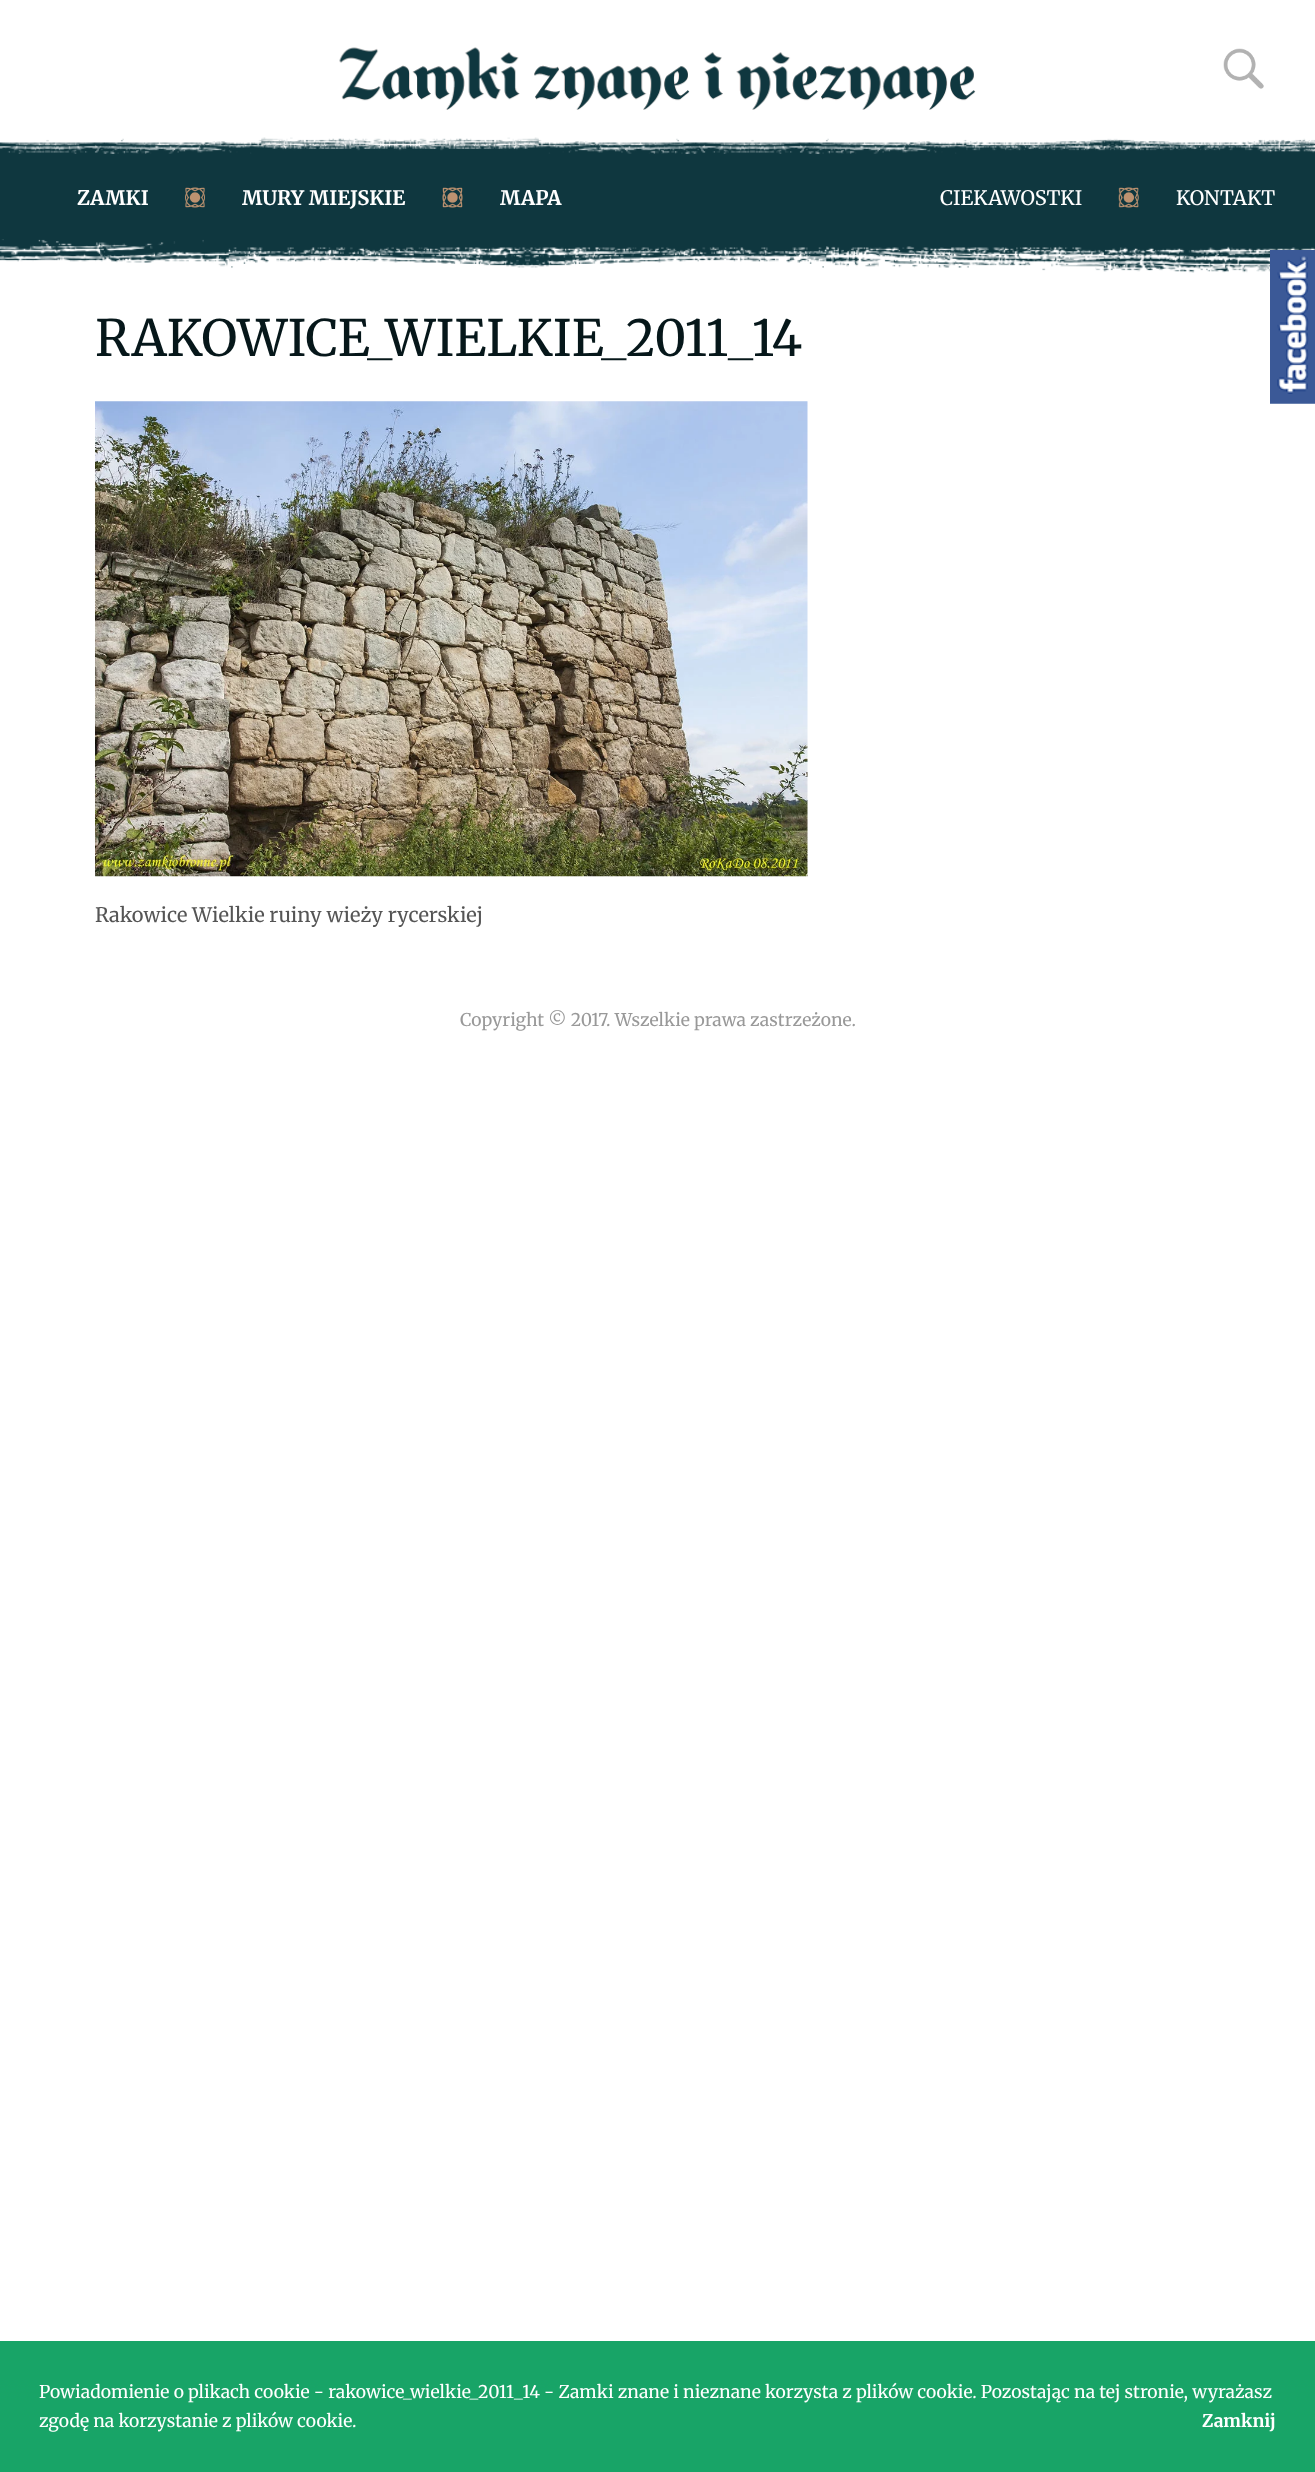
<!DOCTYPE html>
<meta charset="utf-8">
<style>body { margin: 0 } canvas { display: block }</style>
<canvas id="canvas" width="1315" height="2472"></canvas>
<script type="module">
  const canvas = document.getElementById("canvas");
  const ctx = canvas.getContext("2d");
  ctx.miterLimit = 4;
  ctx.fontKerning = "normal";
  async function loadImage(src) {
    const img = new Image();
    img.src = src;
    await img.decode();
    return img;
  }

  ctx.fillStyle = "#ffffff";
  ctx.fillRect(0, 0, 1315, 2472);
  ctx.drawImage(await loadImage("img1.png"), 339, 47, 637, 63);
  ctx.drawImage(await loadImage("img2.png"), 1223, 48, 41, 41);
  ctx.fillStyle = "#0f373f";
  ctx.fillRect(0, 156, 1315, 83);
  ctx.drawImage(await loadImage("img3.png"), 0, 137, 1315, 19);
  ctx.drawImage(await loadImage("img4.png"), 185, 187, 20, 21);
  ctx.font = "bold 20px Merriweather";
  ctx.fillStyle = "#ffffff";
  ctx.fillText("ZAMKI", 77, 205);
  ctx.drawImage(await loadImage("img5.png"), 442, 187, 21, 21);
  ctx.fillText("MURY MIEJSKIE", 242, 205);
  ctx.fillText("MAPA", 500, 205);
  ctx.drawImage(await loadImage("img6.png"), 1118, 187, 21, 21);
  ctx.font = "20px Merriweather";
  ctx.fillText("CIEKAWOSTKI", 940, 205);
  ctx.fillText("KONTAKT", 1176, 205);
  ctx.drawImage(await loadImage("img7.png"), 0, 239, 1315, 34);
  ctx.font = "50px Merriweather";
  ctx.fillStyle = "#06171a";
  ctx.fillText("RAKOWICE_WIELKIE_2011_14", 95, 356);
  ctx.drawImage(await loadImage("img8.png"), 95, 401, 713, 476);
  ctx.font = "20px Merriweather";
  ctx.fillStyle = "#555555";
  ctx.fillText("Rakowice Wielkie ruiny wieży rycerskiej", 95, 922);
  ctx.drawImage(await loadImage("img9.png"), 1270, 250, 45, 154);
  ctx.font = "17.5px Merriweather";
  ctx.fillStyle = "#999999";
  ctx.fillText("Copyright © 2017. Wszelkie prawa zastrzeżone.", 460, 1026);
  ctx.fillStyle = "#18a467";
  ctx.fillRect(0, 2341, 1315, 131);
  ctx.fillStyle = "#ffffff";
  ctx.fillText("Powiadomienie o plikach cookie - rakowice_wielkie_2011_14 - Zamki znane i nieznane korzysta z plików cookie. Pozostając na tej stronie, wyrażasz", 39, 2398);
  ctx.fillText("zgodę na korzystanie z plików cookie.", 39, 2427);
  ctx.font = "bold 17.5px Merriweather";
  ctx.fillText("Zamknij", 1202, 2427);
</script>
